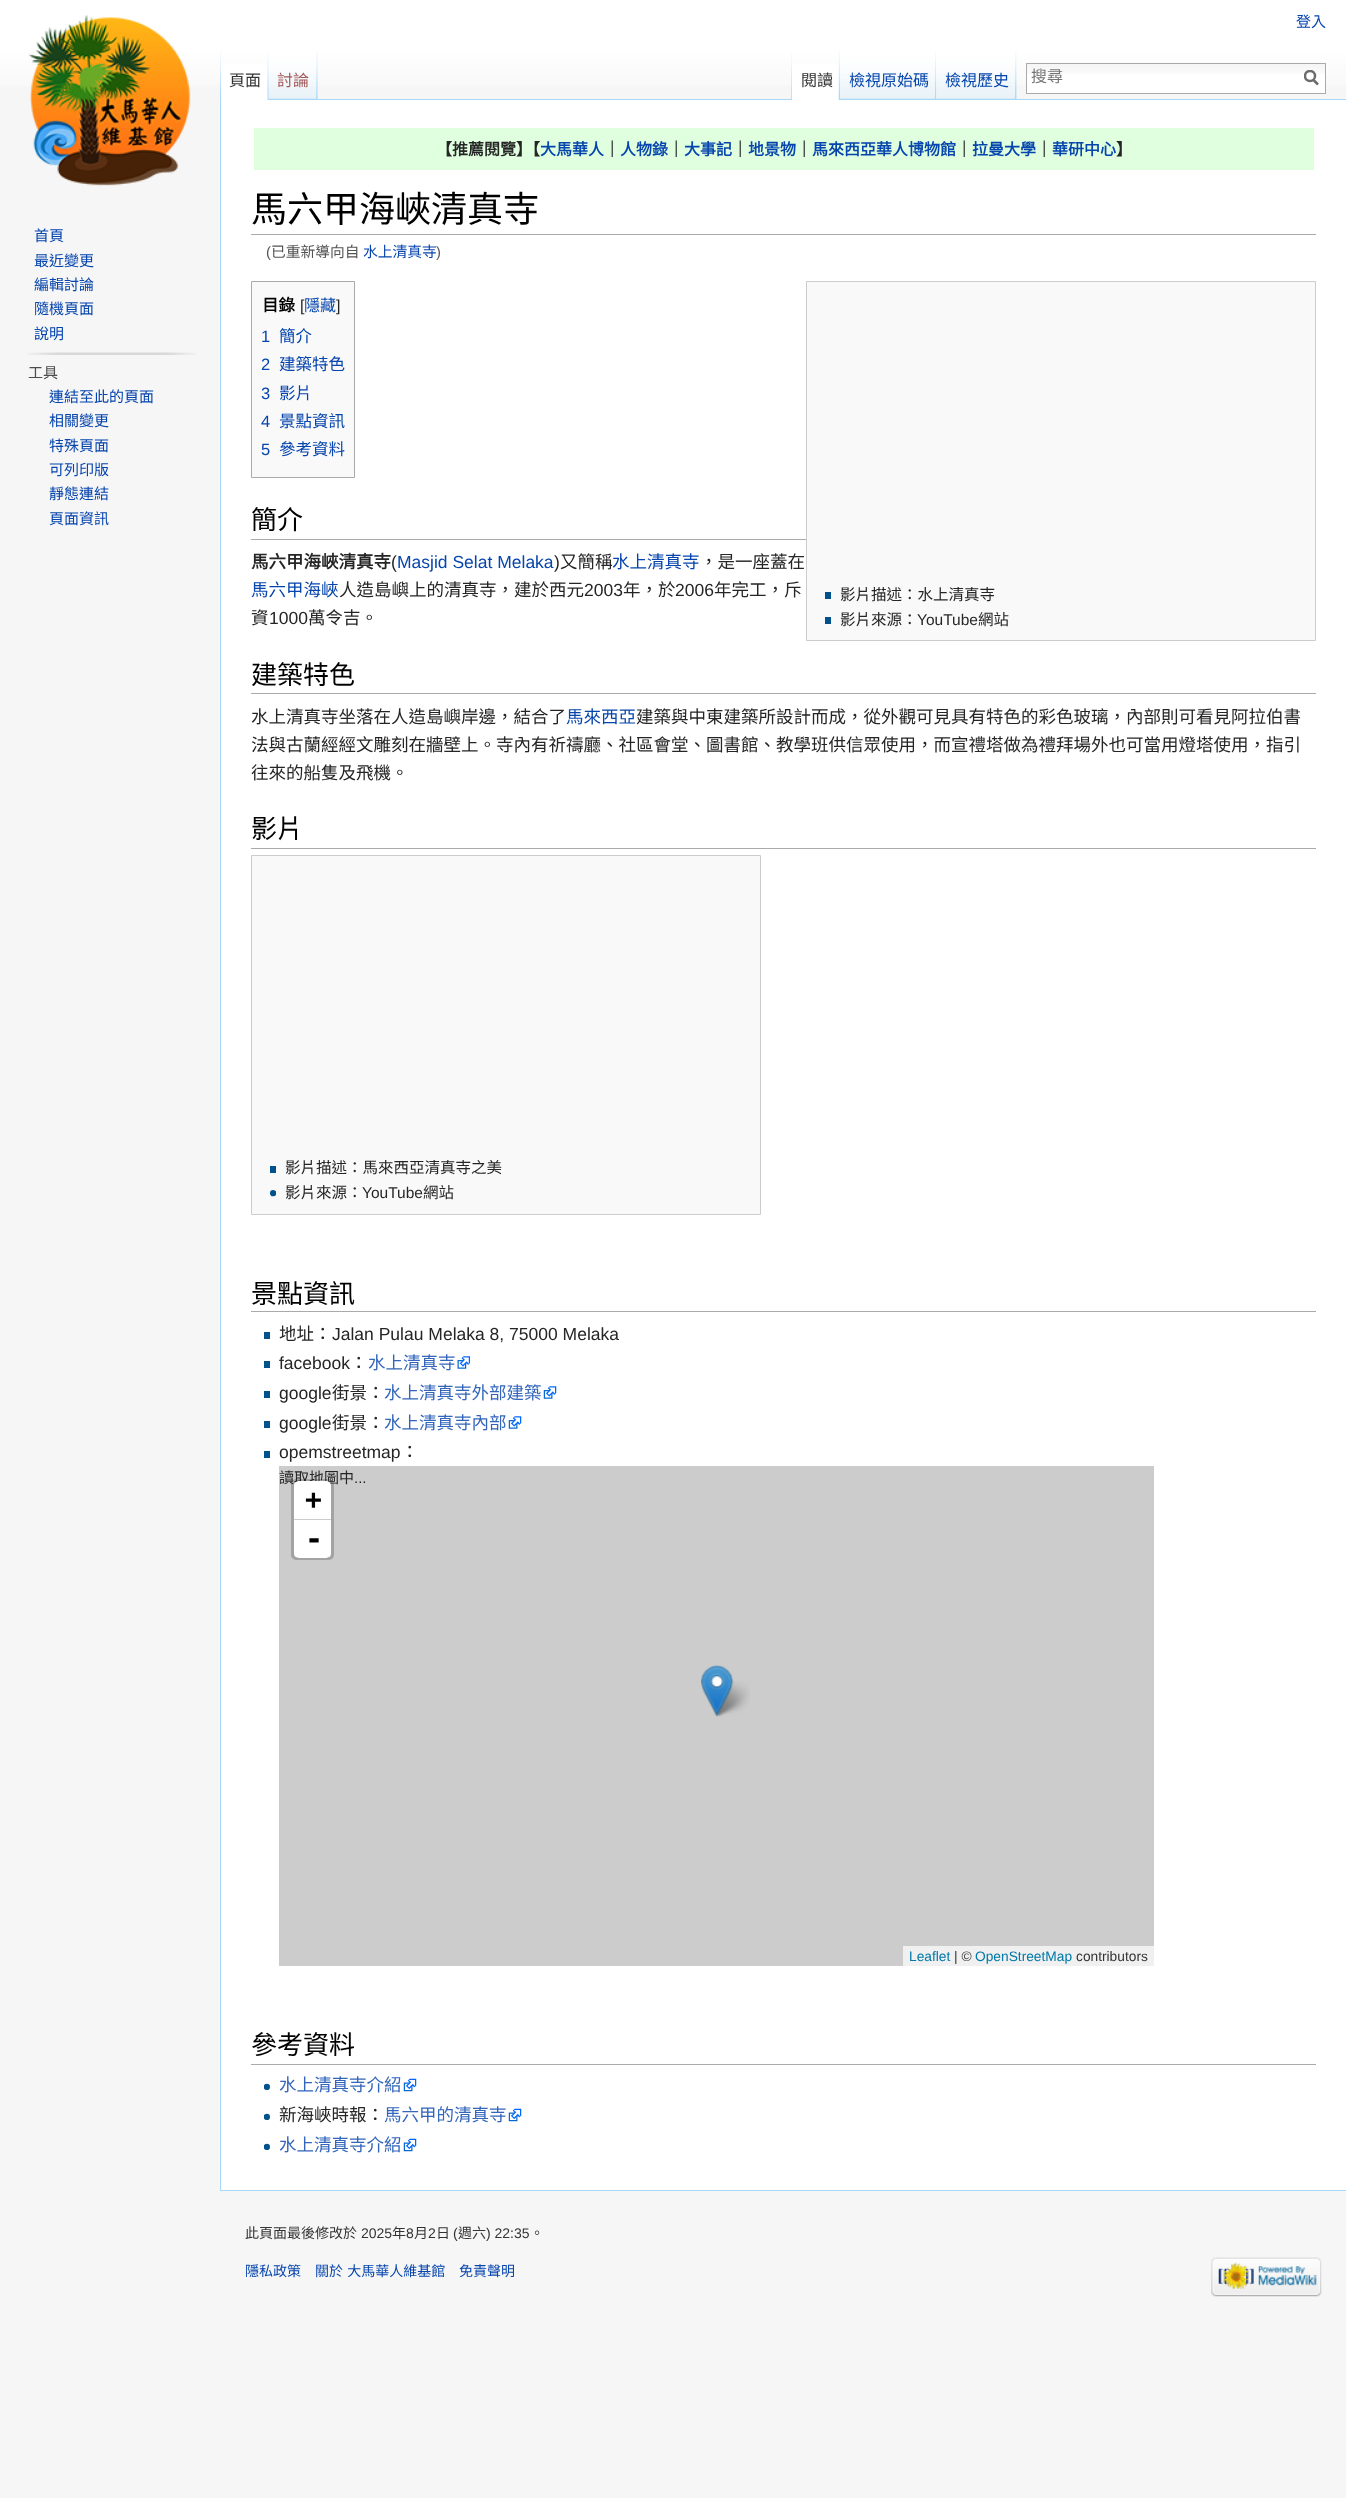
<!DOCTYPE html>
<meta charset="utf-8">
<style>body { margin: 0 } canvas { display: block }</style>
<canvas id="canvas" width="1346" height="2498"></canvas>
<script type="module">
  const canvas = document.getElementById("canvas");
  const ctx = canvas.getContext("2d");
  ctx.miterLimit = 4;
  ctx.fontKerning = "normal";
  async function loadImage(src) {
    const img = new Image();
    img.src = src;
    await img.decode();
    return img;
  }
  let gradient;

  ctx.fillStyle = "#f6f6f6";
  ctx.fillRect(0, 0, 1346, 2498);
  gradient = ctx.createLinearGradient(673, 0, 673, 100);
  gradient.addColorStop(0.5, "#ffffff");
  gradient.addColorStop(1, "#f6f6f6");
  ctx.fillStyle = gradient;
  ctx.fillRect(0, 0, 1346, 86);
  ctx.font = "15px Noto Sans CJK TC";
  ctx.fillStyle = "#0645ad";
  ctx.fillText("登入", 1296, 27);
  ctx.drawImage(await loadImage("img1.png"), 220, 50, 1, 49);
  ctx.fillStyle = "#ffffff";
  ctx.fillRect(221, 64, 48, 36);
  ctx.drawImage(await loadImage("img2.png"), 267, 52, 2, 48);
  ctx.font = "16px Noto Sans CJK TC";
  ctx.fillStyle = "#333333";
  ctx.fillText("頁面", 229, 86);
  ctx.fillStyle = "#f3f3f3";
  ctx.fillRect(317, 50, 1, 50);
  ctx.drawImage(await loadImage("img3.png"), 268, 50, 50, 50);
  ctx.drawImage(await loadImage("img4.png"), 316, 52, 2, 48);
  ctx.fillStyle = "#a55858";
  ctx.fillText("討論", 277, 86);
  ctx.drawImage(await loadImage("img5.png"), 791, 52, 1, 47);
  ctx.drawImage(await loadImage("img6.png"), 1016, 50, 1, 49);
  ctx.fillStyle = "#a7d7f9";
  ctx.fillRect(318, 99, 1028, 1);
  ctx.fillStyle = "#ffffff";
  ctx.fillRect(792, 64, 47, 36);
  ctx.drawImage(await loadImage("img7.png"), 838, 50, 2, 50);
  ctx.fillStyle = "#333333";
  ctx.fillText("閱讀", 801, 86);
  ctx.drawImage(await loadImage("img8.png"), 840, 50, 97, 50);
  ctx.drawImage(await loadImage("img9.png"), 935, 50, 2, 49);
  ctx.fillStyle = "#0645ad";
  ctx.fillText("檢視原始碼", 849, 86);
  ctx.drawImage(await loadImage("img10.png"), 936, 50, 80, 50);
  ctx.drawImage(await loadImage("img11.png"), 1015, 50, 2, 49);
  ctx.fillText("檢視歷史", 945, 86);
  ctx.fillStyle = "#ffffff";
  ctx.fillRect(1027, 74, 298, 19);
  ctx.drawImage(await loadImage("img12.png"), 1027, 64, 298, 10);
  ctx.strokeStyle = "#aaaaaa";
  ctx.strokeRect(1026.5, 63.5, 299, 30);
  ctx.fillStyle = "#757575";
  ctx.fillText("搜尋", 1031, 82);
  ctx.beginPath();
  ctx.moveTo(1318, 84.5);
  ctx.lineTo(1313, 79.5);
  ctx.strokeStyle = "#6c6c6c";
  ctx.lineWidth = 2.5;
  ctx.stroke();
  ctx.save();
  ctx.beginPath();
  ctx.rect(1304, 70, 15, 16);
  ctx.clip();
  ctx.beginPath();
  ctx.arc(1310, 76, 5, 0, Math.PI * 2);
  ctx.stroke();
  ctx.restore();
  ctx.drawImage(await loadImage("img13.png"), 28, 15, 163, 171);
  ctx.font = "15px Noto Sans CJK TC";
  ctx.fillStyle = "#0645ad";
  ctx.fillText("首頁", 34, 241);
  ctx.fillText("最近變更", 34, 266);
  ctx.fillText("編輯討論", 34, 290);
  ctx.fillText("隨機頁面", 34, 314);
  ctx.fillText("說明", 34, 339);
  ctx.drawImage(await loadImage("img14.png"), 27, 352, 170, 3);
  ctx.fillStyle = "#4d4d4d";
  ctx.fillText("工具", 28, 378);
  ctx.fillStyle = "#0645ad";
  ctx.fillText("連結至此的頁面", 49, 402);
  ctx.fillText("相關變更", 49, 426);
  ctx.fillText("特殊頁面", 49, 451);
  ctx.fillText("可列印版", 49, 475);
  ctx.fillText("靜態連結", 49, 499);
  ctx.fillText("頁面資訊", 49, 524);
  ctx.fillStyle = "#ffffff";
  ctx.fillRect(221, 100, 1125, 2090);
  ctx.fillStyle = "#a7d7f9";
  ctx.fillRect(220, 2190, 1126, 1);
  ctx.fillRect(220, 99, 1, 2092);
  ctx.fillStyle = "#dfffdf";
  ctx.fillRect(254, 128, 1060, 42);
  ctx.font = "bold 16px Noto Sans CJK TC";
  ctx.fillStyle = "#252525";
  ctx.fillText("【推薦閱覽】【", 436, 155);
  ctx.fillStyle = "#0645ad";
  ctx.fillText("大馬華人", 540, 155);
  ctx.fillStyle = "#252525";
  ctx.fillText("｜", 604, 155);
  ctx.fillStyle = "#0645ad";
  ctx.fillText("人物錄", 620, 155);
  ctx.fillStyle = "#252525";
  ctx.fillText("｜", 668, 155);
  ctx.fillStyle = "#0645ad";
  ctx.fillText("大事記", 684, 155);
  ctx.fillStyle = "#252525";
  ctx.fillText("｜", 732, 155);
  ctx.fillStyle = "#0645ad";
  ctx.fillText("地景物", 748, 155);
  ctx.fillStyle = "#252525";
  ctx.fillText("｜", 796, 155);
  ctx.fillStyle = "#0645ad";
  ctx.fillText("馬來西亞華人博物館", 812, 155);
  ctx.fillStyle = "#252525";
  ctx.fillText("｜", 956, 155);
  ctx.fillStyle = "#0645ad";
  ctx.fillText("拉曼大學", 972, 155);
  ctx.fillStyle = "#252525";
  ctx.fillText("｜", 1036, 155);
  ctx.fillStyle = "#0645ad";
  ctx.fillText("華研中心", 1052, 155);
  ctx.fillStyle = "#252525";
  ctx.fillText("】", 1116, 155);
  ctx.fillStyle = "#aaaaaa";
  ctx.fillRect(251, 234, 1065, 1);
  ctx.font = "36px Noto Sans CJK TC";
  ctx.fillStyle = "#000000";
  ctx.fillText("馬六甲海峽清真寺", 251, 222);
  ctx.font = "14.75px Liberation Sans";
  ctx.fillStyle = "#545454";
  ctx.fillText("(", 266, 257);
  ctx.font = "14.75px Noto Sans CJK TC";
  ctx.fillText("已重新導向自", 271, 257);
  ctx.fillStyle = "#0645ad";
  ctx.fillText("水上清真寺", 363, 257);
  ctx.font = "14.75px Liberation Sans";
  ctx.fillStyle = "#545454";
  ctx.fillText(")", 436, 257);
  ctx.fillStyle = "#f9f9f9";
  ctx.beginPath();
  ctx.rect(251.5, 281.5, 103, 196);
  ctx.fill();
  ctx.strokeStyle = "#aaaaaa";
  ctx.lineWidth = 1;
  ctx.stroke();
  ctx.font = "bold 16.5px Noto Sans CJK TC";
  ctx.fillStyle = "#000000";
  ctx.fillText("目錄", 262, 311);
  ctx.font = "16px Liberation Sans";
  ctx.fillStyle = "#252525";
  ctx.fillText("[", 300, 311);
  ctx.font = "16px Noto Sans CJK TC";
  ctx.fillStyle = "#0645ad";
  ctx.fillText("隱藏", 304, 311);
  ctx.font = "16px Liberation Sans";
  ctx.fillStyle = "#252525";
  ctx.fillText("]", 336, 311);
  ctx.font = "16.5px Liberation Sans";
  ctx.fillStyle = "#0645ad";
  ctx.fillText("1", 261, 342);
  ctx.font = "16.5px Noto Sans CJK TC";
  ctx.fillText("簡介", 279, 342);
  ctx.font = "16.5px Liberation Sans";
  ctx.fillText("2", 261, 370);
  ctx.font = "16.5px Noto Sans CJK TC";
  ctx.fillText("建築特色", 279, 370);
  ctx.font = "16.5px Liberation Sans";
  ctx.fillText("3", 261, 399);
  ctx.font = "16.5px Noto Sans CJK TC";
  ctx.fillText("影片", 279, 399);
  ctx.font = "16.5px Liberation Sans";
  ctx.fillText("4", 261, 427);
  ctx.font = "16.5px Noto Sans CJK TC";
  ctx.fillText("景點資訊", 279, 427);
  ctx.font = "16.5px Liberation Sans";
  ctx.fillText("5", 261, 455);
  ctx.font = "16.5px Noto Sans CJK TC";
  ctx.fillText("參考資料", 279, 455);
  ctx.fillStyle = "#aaaaaa";
  ctx.fillRect(251, 539, 555, 1);
  ctx.font = "26px Noto Sans CJK TC";
  ctx.fillStyle = "#000000";
  ctx.fillText("簡介", 251, 529);
  ctx.font = "bold 17.5px Noto Sans CJK TC";
  ctx.fillStyle = "#252525";
  ctx.fillText("馬六甲海峽清真寺", 251, 568);
  ctx.font = "17.5px Liberation Sans";
  ctx.fillText("(", 391, 568);
  ctx.fillStyle = "#0645ad";
  ctx.fillText("Masjid Selat Melaka", 397, 568);
  ctx.fillStyle = "#252525";
  ctx.fillText(")", 554, 568);
  ctx.font = "17.5px Noto Sans CJK TC";
  ctx.fillText("又簡稱", 560, 568);
  ctx.fillStyle = "#0645ad";
  ctx.fillText("水上清真寺", 612, 568);
  ctx.fillStyle = "#252525";
  ctx.fillText("，是一座蓋在", 700, 568);
  ctx.fillStyle = "#0645ad";
  ctx.fillText("馬六甲海峽", 251, 596);
  ctx.fillStyle = "#252525";
  ctx.fillText("人造島嶼上的清真寺，建於西元", 339, 596);
  ctx.font = "17.5px Liberation Sans";
  ctx.fillText("2003", 584, 596);
  ctx.font = "17.5px Noto Sans CJK TC";
  ctx.fillText("年，於", 623, 596);
  ctx.font = "17.5px Liberation Sans";
  ctx.fillText("2006", 675, 596);
  ctx.font = "17.5px Noto Sans CJK TC";
  ctx.fillText("年完工，斥", 714, 596);
  ctx.fillText("資", 251, 624);
  ctx.font = "17.5px Liberation Sans";
  ctx.fillText("1000", 269, 624);
  ctx.font = "17.5px Noto Sans CJK TC";
  ctx.fillText("萬令吉。", 308, 624);
  ctx.fillStyle = "#f9f9f9";
  ctx.beginPath();
  ctx.rect(806.5, 281.5, 509, 359);
  ctx.fill();
  ctx.strokeStyle = "#cccccc";
  ctx.stroke();
  ctx.fillStyle = "#00528c";
  ctx.fillRect(825, 592, 6, 7);
  ctx.font = "15.5px Noto Sans CJK TC";
  ctx.fillStyle = "#252525";
  ctx.fillText("影片描述：水上清真寺", 840, 600);
  ctx.fillStyle = "#00528c";
  ctx.fillRect(825, 617, 6, 7);
  ctx.fillStyle = "#252525";
  ctx.fillText("影片來源：", 840, 625);
  ctx.font = "15.5px Liberation Sans";
  ctx.fillText("YouTube", 917, 625);
  ctx.font = "15.5px Noto Sans CJK TC";
  ctx.fillText("網站", 978, 625);
  ctx.fillStyle = "#aaaaaa";
  ctx.fillRect(251, 693, 1065, 1);
  ctx.font = "26px Noto Sans CJK TC";
  ctx.fillStyle = "#000000";
  ctx.fillText("建築特色", 251, 684);
  ctx.font = "17.5px Noto Sans CJK TC";
  ctx.fillStyle = "#252525";
  ctx.fillText("水上清真寺坐落在人造島嶼岸邊，結合了", 251, 723);
  ctx.fillStyle = "#0645ad";
  ctx.fillText("馬來西亞", 566, 723);
  ctx.fillStyle = "#252525";
  ctx.fillText("建築與中東建築所設計而成，從外觀可見具有特色的彩色玻璃，內部則可看見阿拉伯書", 636, 723);
  ctx.fillText("法與古蘭經經文雕刻在牆壁上。寺內有祈禱廳、社區會堂、圖書館、教學班供信眾使用，而宣禮塔做為禮拜場外也可當用燈塔使用，指引", 251, 751);
  ctx.fillText("往來的船隻及飛機。", 251, 779);
  ctx.fillStyle = "#aaaaaa";
  ctx.fillRect(251, 848, 1065, 1);
  ctx.font = "26px Noto Sans CJK TC";
  ctx.fillStyle = "#000000";
  ctx.fillText("影片", 251, 838);
  ctx.fillStyle = "#f9f9f9";
  ctx.beginPath();
  ctx.rect(251.5, 855.5, 509, 359);
  ctx.fill();
  ctx.stroke();
  ctx.fillStyle = "#00528c";
  ctx.fillRect(270, 1166, 6, 7);
  ctx.font = "15.5px Noto Sans CJK TC";
  ctx.fillStyle = "#252525";
  ctx.fillText("影片描述：馬來西亞清真寺之美", 285, 1173);
  ctx.drawImage(await loadImage("img15.png"), 270, 1190, 6, 7);
  ctx.fillText("影片來源：", 285, 1198);
  ctx.font = "15.5px Liberation Sans";
  ctx.fillText("YouTube", 362, 1198);
  ctx.font = "15.5px Noto Sans CJK TC";
  ctx.fillText("網站", 423, 1198);
  ctx.fillStyle = "#aaaaaa";
  ctx.fillRect(251, 1311, 1065, 1);
  ctx.font = "26px Noto Sans CJK TC";
  ctx.fillStyle = "#000000";
  ctx.fillText("景點資訊", 251, 1303);
  ctx.fillStyle = "#00528c";
  ctx.fillRect(264, 1332, 6, 7);
  ctx.font = "17.5px Noto Sans CJK TC";
  ctx.fillStyle = "#252525";
  ctx.fillText("地址：", 279, 1340);
  ctx.font = "17.5px Liberation Sans";
  ctx.fillText("Jalan Pulau Melaka 8, 75000 Melaka", 332, 1340);
  ctx.fillStyle = "#00528c";
  ctx.fillRect(264, 1361, 6, 7);
  ctx.fillStyle = "#252525";
  ctx.fillText("facebook", 279, 1369);
  ctx.font = "17.5px Noto Sans CJK TC";
  ctx.fillText("：", 350, 1369);
  ctx.fillStyle = "#3366bb";
  ctx.fillText("水上清真寺", 368, 1369);
  ctx.drawImage(await loadImage("img16.png"), 457, 1356, 13, 13);
  ctx.fillStyle = "#00528c";
  ctx.fillRect(264, 1391, 6, 7);
  ctx.font = "17.5px Liberation Sans";
  ctx.fillStyle = "#252525";
  ctx.fillText("google", 279, 1399);
  ctx.font = "17.5px Noto Sans CJK TC";
  ctx.fillText("街景：", 332, 1399);
  ctx.fillStyle = "#3366bb";
  ctx.fillText("水上清真寺外部建築", 384, 1399);
  ctx.drawImage(await loadImage("img17.png"), 543, 1386, 14, 13);
  ctx.fillStyle = "#00528c";
  ctx.fillRect(264, 1421, 6, 7);
  ctx.font = "17.5px Liberation Sans";
  ctx.fillStyle = "#252525";
  ctx.fillText("google", 279, 1429);
  ctx.font = "17.5px Noto Sans CJK TC";
  ctx.fillText("街景：", 332, 1429);
  ctx.fillStyle = "#3366bb";
  ctx.fillText("水上清真寺內部", 384, 1429);
  ctx.drawImage(await loadImage("img17.png"), 508, 1416, 14, 13);
  ctx.fillStyle = "#00528c";
  ctx.fillRect(264, 1451, 6, 7);
  ctx.font = "17.5px Liberation Sans";
  ctx.fillStyle = "#252525";
  ctx.fillText("opemstreetmap", 279, 1458);
  ctx.font = "17.5px Noto Sans CJK TC";
  ctx.fillText("：", 401, 1458);
  ctx.fillStyle = "#cccccc";
  ctx.fillRect(279, 1466, 875, 500);
  ctx.font = "15px Noto Sans CJK TC";
  ctx.fillStyle = "#252525";
  ctx.fillText("讀取地圖中", 279, 1483);
  ctx.font = "15px Liberation Sans";
  ctx.fillText("...", 354, 1483);
  ctx.beginPath();
  ctx.roundRect(292.5, 1480.5, 40, 78, 3.5);
  ctx.strokeStyle = "rgba(0, 0, 0, 0.2)";
  ctx.lineWidth = 3;
  ctx.stroke();
  ctx.fillStyle = "#ffffff";
  ctx.beginPath();
  ctx.roundRect(294, 1481, 37, 39, [5, 5, 0, 0]);
  ctx.fill();
  ctx.fillStyle = "#cccccc";
  ctx.fillRect(294, 1519, 37, 1);
  ctx.font = "bold 28px DejaVu Sans Mono";
  ctx.fillStyle = "#000000";
  ctx.fillText("+", 305, 1509);
  ctx.fillStyle = "#ffffff";
  ctx.beginPath();
  ctx.roundRect(294, 1520, 37, 38, [0, 0, 5, 5]);
  ctx.fill();
  ctx.font = "bold 30px DejaVu Sans Mono";
  ctx.fillStyle = "#000000";
  ctx.fillText("-", 305, 1549);
  ctx.fillStyle = "#f0f0f0";
  ctx.fillRect(903, 1946, 251, 20);
  ctx.font = "13.75px Liberation Sans";
  ctx.fillStyle = "#0078a8";
  ctx.fillText("Leaflet", 909, 1961);
  ctx.fillStyle = "#333333";
  ctx.fillText("| ©", 954, 1961);
  ctx.fillStyle = "#0078a8";
  ctx.fillText("OpenStreetMap", 975, 1961);
  ctx.fillStyle = "#333333";
  ctx.fillText("contributors", 1076, 1961);
  ctx.drawImage(await loadImage("img19.png"), 712, 1681, 38, 36);
  ctx.drawImage(await loadImage("img18.png"), 701, 1665, 33, 52);
  ctx.fillStyle = "#aaaaaa";
  ctx.fillRect(251, 2064, 1065, 1);
  ctx.font = "26px Noto Sans CJK TC";
  ctx.fillStyle = "#000000";
  ctx.fillText("參考資料", 251, 2054);
  ctx.drawImage(await loadImage("img20.png"), 264, 2083, 6, 7);
  ctx.font = "17.5px Noto Sans CJK TC";
  ctx.fillStyle = "#3366bb";
  ctx.fillText("水上清真寺介紹", 279, 2091);
  ctx.drawImage(await loadImage("img21.png"), 403, 2078, 14, 14);
  ctx.drawImage(await loadImage("img20.png"), 264, 2113, 6, 7);
  ctx.fillStyle = "#252525";
  ctx.fillText("新海峽時報：", 279, 2121);
  ctx.fillStyle = "#3366bb";
  ctx.fillText("馬六甲的清真寺", 384, 2121);
  ctx.drawImage(await loadImage("img21.png"), 508, 2108, 14, 14);
  ctx.drawImage(await loadImage("img20.png"), 264, 2143, 6, 7);
  ctx.fillText("水上清真寺介紹", 279, 2151);
  ctx.drawImage(await loadImage("img21.png"), 403, 2138, 14, 14);
  ctx.font = "14px Noto Sans CJK TC";
  ctx.fillStyle = "#333333";
  ctx.fillText("此頁面最後修改於", 245, 2238);
  ctx.font = "14px Liberation Sans";
  ctx.fillText("2025", 361, 2238);
  ctx.font = "14px Noto Sans CJK TC";
  ctx.fillText("年", 392, 2238);
  ctx.font = "14px Liberation Sans";
  ctx.fillText("8", 406, 2238);
  ctx.font = "14px Noto Sans CJK TC";
  ctx.fillText("月", 414, 2238);
  ctx.font = "14px Liberation Sans";
  ctx.fillText("2", 428, 2238);
  ctx.font = "14px Noto Sans CJK TC";
  ctx.fillText("日", 436, 2238);
  ctx.font = "14px Liberation Sans";
  ctx.fillText("(", 453, 2238);
  ctx.font = "14px Noto Sans CJK TC";
  ctx.fillText("週六", 458, 2238);
  ctx.font = "14px Liberation Sans";
  ctx.fillText(") 22:35", 486, 2238);
  ctx.font = "14px Noto Sans CJK TC";
  ctx.fillText("。", 530, 2238);
  ctx.fillStyle = "#0645ad";
  ctx.fillText("隱私政策", 245, 2276);
  ctx.wordSpacing = "1px";
  ctx.fillText("關於 大馬華人維基館", 315, 2276);
  ctx.wordSpacing = "0px";
  ctx.fillText("免責聲明", 459, 2276);
  ctx.drawImage(await loadImage("img22.png"), 1211, 2257, 111, 40);
</script>
